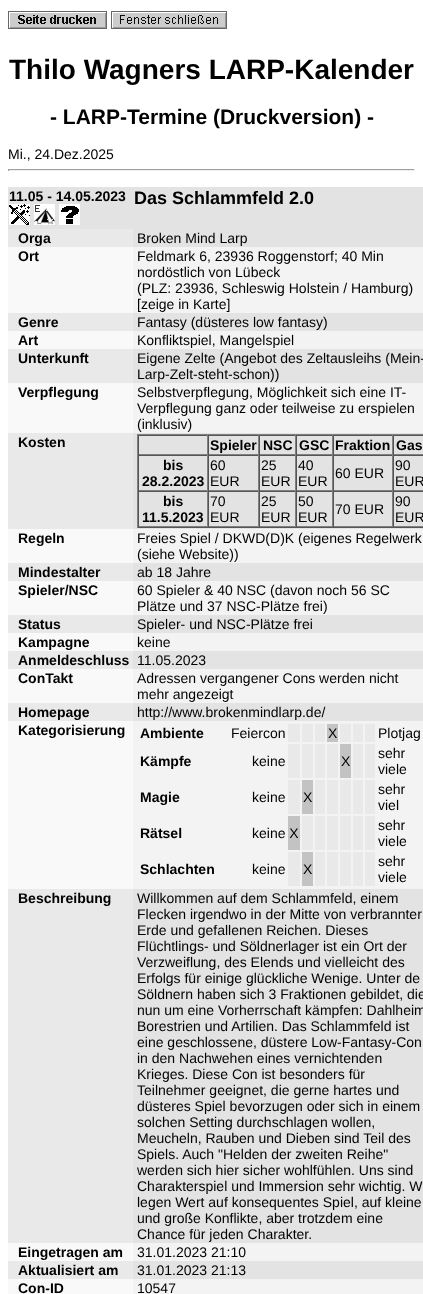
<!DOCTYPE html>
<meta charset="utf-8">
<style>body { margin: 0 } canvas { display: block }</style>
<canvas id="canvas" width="423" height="1294"></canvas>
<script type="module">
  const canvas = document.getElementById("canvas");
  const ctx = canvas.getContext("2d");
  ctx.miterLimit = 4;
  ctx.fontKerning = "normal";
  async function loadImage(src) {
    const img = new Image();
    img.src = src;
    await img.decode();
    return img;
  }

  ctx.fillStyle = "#ffffff";
  ctx.fillRect(0, 0, 423, 1294);
  ctx.drawImage(await loadImage("img1.png"), 8, 11, 99, 18);
  ctx.drawImage(await loadImage("img2.png"), 111, 11, 116, 18);
  ctx.font = "bold 28px Liberation Sans";
  ctx.fillStyle = "#000000";
  ctx.fillText("Thilo Wagners LARP-Kalender", 9, 79);
  ctx.font = "bold 21px Liberation Sans";
  ctx.fillText("- LARP-Termine (Druckversion) -", 50, 124);
  ctx.font = "14px Liberation Sans";
  ctx.fillText("Mi., 24.Dez.2025", 8, 159);
  ctx.fillStyle = "#9f9f9f";
  ctx.fillRect(8, 169, 407, 1);
  ctx.fillStyle = "#eeeeee";
  ctx.fillRect(414, 169, 1, 2);
  ctx.fillRect(8, 170, 407, 1);
  ctx.fillStyle = "#9f9f9f";
  ctx.fillRect(8, 169, 1, 2);
  ctx.fillStyle = "#e3e3e3";
  ctx.fillRect(8, 187, 415, 42);
  ctx.font = "bold 14px Liberation Sans";
  ctx.fillStyle = "#000000";
  ctx.fillText("11.05 - 14.05.2023", 9, 201);
  ctx.drawImage(await loadImage("img3.png"), 9, 204, 21, 21);
  ctx.drawImage(await loadImage("img4.png"), 34, 204, 21, 21);
  ctx.drawImage(await loadImage("img5.png"), 59, 204, 21, 21);
  ctx.font = "bold 18px Liberation Sans";
  ctx.fillText("Das Schlammfeld 2.0", 134, 204);
  ctx.fillStyle = "#e9e9e9";
  ctx.fillRect(8, 229, 125, 18);
  ctx.fillStyle = "#e3e3e3";
  ctx.fillRect(133, 229, 290, 18);
  ctx.font = "14px Liberation Sans";
  ctx.fillStyle = "#000000";
  ctx.fillText("Broken Mind Larp", 137, 243);
  ctx.font = "bold 14px Liberation Sans";
  ctx.fillText("Orga", 18, 243);
  ctx.fillStyle = "#f9f9f9";
  ctx.fillRect(8, 247, 125, 66);
  ctx.fillStyle = "#f3f3f3";
  ctx.fillRect(133, 247, 290, 66);
  ctx.font = "14px Liberation Sans";
  ctx.fillStyle = "#000000";
  ctx.fillText("Feldmark 6, 23936 Roggenstorf; 40 Min", 137, 261);
  ctx.fillText("nordöstlich von Lübeck", 137, 277);
  ctx.fillText("(PLZ: 23936, Schleswig Holstein / Hamburg)", 137, 293);
  ctx.fillText("[zeige in Karte]", 137, 309);
  ctx.font = "bold 14px Liberation Sans";
  ctx.fillText("Ort", 18, 261);
  ctx.fillStyle = "#e9e9e9";
  ctx.fillRect(8, 313, 125, 18);
  ctx.fillStyle = "#e3e3e3";
  ctx.fillRect(133, 313, 290, 18);
  ctx.font = "14px Liberation Sans";
  ctx.fillStyle = "#000000";
  ctx.fillText("Fantasy (düsteres low fantasy)", 137, 327);
  ctx.font = "bold 14px Liberation Sans";
  ctx.fillText("Genre", 18, 327);
  ctx.fillStyle = "#f9f9f9";
  ctx.fillRect(8, 331, 125, 18);
  ctx.fillStyle = "#f3f3f3";
  ctx.fillRect(133, 331, 290, 18);
  ctx.font = "14px Liberation Sans";
  ctx.fillStyle = "#000000";
  ctx.fillText("Konfliktspiel, Mangelspiel", 137, 345);
  ctx.font = "bold 14px Liberation Sans";
  ctx.fillText("Art", 18, 345);
  ctx.fillStyle = "#e9e9e9";
  ctx.fillRect(8, 349, 125, 34);
  ctx.fillStyle = "#000000";
  ctx.fillText("Unterkunft", 18, 363);
  ctx.fillStyle = "#e3e3e3";
  ctx.fillRect(133, 349, 290, 34);
  ctx.font = "14px Liberation Sans";
  ctx.fillStyle = "#000000";
  ctx.fillText("Eigene Zelte (Angebot des Zeltausleihs (Mein-", 137, 363);
  ctx.fillText("Larp-Zelt-steht-schon))", 137, 379);
  ctx.fillStyle = "#f9f9f9";
  ctx.fillRect(8, 383, 125, 50);
  ctx.font = "bold 14px Liberation Sans";
  ctx.fillStyle = "#000000";
  ctx.fillText("Verpflegung", 18, 397);
  ctx.fillStyle = "#f3f3f3";
  ctx.fillRect(133, 383, 290, 50);
  ctx.font = "14px Liberation Sans";
  ctx.fillStyle = "#000000";
  ctx.fillText("Selbstverpflegung, Möglichkeit sich eine IT-", 137, 397);
  ctx.fillText("Verpflegung ganz oder teilweise zu erspielen", 137, 413);
  ctx.fillText("(inklusiv)", 137, 429);
  ctx.fillStyle = "#e9e9e9";
  ctx.fillRect(8, 433, 125, 96);
  ctx.font = "bold 14px Liberation Sans";
  ctx.fillStyle = "#000000";
  ctx.fillText("Kosten", 18, 447);
  ctx.fillStyle = "#e3e3e3";
  ctx.fillRect(133, 433, 290, 96);
  ctx.fillStyle = "#808080";
  ctx.fillRect(137, 434, 286, 1);
  ctx.fillStyle = "#555555";
  ctx.fillRect(137, 527, 286, 1);
  ctx.fillStyle = "#808080";
  ctx.fillRect(137, 434, 1, 94);
  ctx.fillStyle = "#555555";
  ctx.fillRect(138, 435, 285, 1);
  ctx.fillStyle = "#808080";
  ctx.fillRect(207, 435, 1, 20);
  ctx.fillRect(138, 454, 70, 1);
  ctx.fillStyle = "#555555";
  ctx.fillRect(138, 435, 1, 20);
  ctx.fillStyle = "#808080";
  ctx.fillRect(258, 435, 1, 20);
  ctx.fillRect(208, 454, 51, 1);
  ctx.fillStyle = "#555555";
  ctx.fillRect(208, 435, 1, 20);
  ctx.fillStyle = "#000000";
  ctx.fillText("Spieler", 210, 450);
  ctx.fillStyle = "#808080";
  ctx.fillRect(295, 435, 1, 20);
  ctx.fillRect(259, 454, 37, 1);
  ctx.fillStyle = "#555555";
  ctx.fillRect(259, 435, 1, 20);
  ctx.fillStyle = "#000000";
  ctx.fillText("NSC", 263, 450);
  ctx.fillStyle = "#808080";
  ctx.fillRect(332, 435, 1, 20);
  ctx.fillRect(296, 454, 37, 1);
  ctx.fillStyle = "#555555";
  ctx.fillRect(296, 435, 1, 20);
  ctx.fillStyle = "#000000";
  ctx.fillText("GSC", 299, 450);
  ctx.fillStyle = "#808080";
  ctx.fillRect(392, 435, 1, 20);
  ctx.fillRect(333, 454, 90, 1);
  ctx.fillStyle = "#555555";
  ctx.fillRect(333, 435, 1, 20);
  ctx.fillStyle = "#000000";
  ctx.fillText("Fraktion", 335, 450);
  ctx.fillStyle = "#555555";
  ctx.fillRect(393, 435, 1, 20);
  ctx.fillStyle = "#000000";
  ctx.fillText("Gas", 396, 450);
  ctx.fillStyle = "#555555";
  ctx.fillRect(138, 455, 285, 1);
  ctx.fillStyle = "#808080";
  ctx.fillRect(207, 455, 1, 36);
  ctx.fillRect(138, 490, 70, 1);
  ctx.fillStyle = "#555555";
  ctx.fillRect(138, 455, 1, 36);
  ctx.fillStyle = "#000000";
  ctx.fillText("bis", 163, 470);
  ctx.fillText("28.2.2023", 142, 486);
  ctx.fillStyle = "#808080";
  ctx.fillRect(258, 455, 1, 36);
  ctx.fillRect(208, 490, 51, 1);
  ctx.fillStyle = "#555555";
  ctx.fillRect(208, 455, 1, 36);
  ctx.font = "14px Liberation Sans";
  ctx.fillStyle = "#000000";
  ctx.fillText("60", 210, 470);
  ctx.fillText("EUR", 210, 486);
  ctx.fillStyle = "#808080";
  ctx.fillRect(295, 455, 1, 36);
  ctx.fillRect(259, 490, 37, 1);
  ctx.fillStyle = "#555555";
  ctx.fillRect(259, 455, 1, 36);
  ctx.fillStyle = "#000000";
  ctx.fillText("25", 261, 470);
  ctx.fillText("EUR", 261, 486);
  ctx.fillStyle = "#808080";
  ctx.fillRect(332, 455, 1, 36);
  ctx.fillRect(296, 490, 37, 1);
  ctx.fillStyle = "#555555";
  ctx.fillRect(296, 455, 1, 36);
  ctx.fillStyle = "#000000";
  ctx.fillText("40", 298, 470);
  ctx.fillText("EUR", 298, 486);
  ctx.fillStyle = "#808080";
  ctx.fillRect(392, 455, 1, 36);
  ctx.fillRect(333, 490, 90, 1);
  ctx.fillStyle = "#555555";
  ctx.fillRect(333, 455, 1, 36);
  ctx.fillStyle = "#000000";
  ctx.fillText("60 EUR", 335, 478);
  ctx.fillStyle = "#555555";
  ctx.fillRect(393, 455, 1, 36);
  ctx.fillStyle = "#000000";
  ctx.fillText("90", 395, 470);
  ctx.fillText("EUR", 395, 486);
  ctx.fillStyle = "#555555";
  ctx.fillRect(138, 491, 285, 1);
  ctx.fillStyle = "#808080";
  ctx.fillRect(207, 491, 1, 36);
  ctx.fillRect(138, 526, 70, 1);
  ctx.fillStyle = "#555555";
  ctx.fillRect(138, 491, 1, 36);
  ctx.font = "bold 14px Liberation Sans";
  ctx.fillStyle = "#000000";
  ctx.fillText("bis", 163, 506);
  ctx.fillText("11.5.2023", 142, 522);
  ctx.fillStyle = "#808080";
  ctx.fillRect(258, 491, 1, 36);
  ctx.fillRect(208, 526, 51, 1);
  ctx.fillStyle = "#555555";
  ctx.fillRect(208, 491, 1, 36);
  ctx.font = "14px Liberation Sans";
  ctx.fillStyle = "#000000";
  ctx.fillText("70", 210, 506);
  ctx.fillText("EUR", 210, 522);
  ctx.fillStyle = "#808080";
  ctx.fillRect(295, 491, 1, 36);
  ctx.fillRect(259, 526, 37, 1);
  ctx.fillStyle = "#555555";
  ctx.fillRect(259, 491, 1, 36);
  ctx.fillStyle = "#000000";
  ctx.fillText("25", 261, 506);
  ctx.fillText("EUR", 261, 522);
  ctx.fillStyle = "#808080";
  ctx.fillRect(332, 491, 1, 36);
  ctx.fillRect(296, 526, 37, 1);
  ctx.fillStyle = "#555555";
  ctx.fillRect(296, 491, 1, 36);
  ctx.fillStyle = "#000000";
  ctx.fillText("50", 298, 506);
  ctx.fillText("EUR", 298, 522);
  ctx.fillStyle = "#808080";
  ctx.fillRect(392, 491, 1, 36);
  ctx.fillRect(333, 526, 90, 1);
  ctx.fillStyle = "#555555";
  ctx.fillRect(333, 491, 1, 36);
  ctx.fillStyle = "#000000";
  ctx.fillText("70 EUR", 335, 514);
  ctx.fillStyle = "#555555";
  ctx.fillRect(393, 491, 1, 36);
  ctx.fillStyle = "#000000";
  ctx.fillText("90", 395, 506);
  ctx.fillText("EUR", 395, 522);
  ctx.fillStyle = "#f9f9f9";
  ctx.fillRect(8, 529, 125, 34);
  ctx.font = "bold 14px Liberation Sans";
  ctx.fillStyle = "#000000";
  ctx.fillText("Regeln", 18, 543);
  ctx.fillStyle = "#f3f3f3";
  ctx.fillRect(133, 529, 290, 34);
  ctx.font = "14px Liberation Sans";
  ctx.fillStyle = "#000000";
  ctx.fillText("Freies Spiel / DKWD(D)K (eigenes Regelwerk", 137, 543);
  ctx.fillText("(siehe Website))", 137, 559);
  ctx.fillStyle = "#e9e9e9";
  ctx.fillRect(8, 563, 125, 18);
  ctx.font = "bold 14px Liberation Sans";
  ctx.fillStyle = "#000000";
  ctx.fillText("Mindestalter", 18, 577);
  ctx.fillStyle = "#e3e3e3";
  ctx.fillRect(133, 563, 290, 18);
  ctx.font = "14px Liberation Sans";
  ctx.fillStyle = "#000000";
  ctx.fillText("ab 18 Jahre", 137, 577);
  ctx.fillStyle = "#f9f9f9";
  ctx.fillRect(8, 581, 125, 34);
  ctx.font = "bold 14px Liberation Sans";
  ctx.fillStyle = "#000000";
  ctx.fillText("Spieler/NSC", 18, 595);
  ctx.fillStyle = "#f3f3f3";
  ctx.fillRect(133, 581, 290, 34);
  ctx.font = "14px Liberation Sans";
  ctx.fillStyle = "#000000";
  ctx.fillText("60 Spieler & 40 NSC (davon noch 56 SC", 137, 595);
  ctx.fillText("Plätze und 37 NSC-Plätze frei)", 137, 611);
  ctx.fillStyle = "#e9e9e9";
  ctx.fillRect(8, 615, 125, 18);
  ctx.fillStyle = "#e3e3e3";
  ctx.fillRect(133, 615, 290, 18);
  ctx.fillStyle = "#000000";
  ctx.fillText("Spieler- und NSC-Plätze frei", 137, 629);
  ctx.font = "bold 14px Liberation Sans";
  ctx.fillText("Status", 18, 629);
  ctx.fillStyle = "#f9f9f9";
  ctx.fillRect(8, 633, 125, 18);
  ctx.fillStyle = "#f3f3f3";
  ctx.fillRect(133, 633, 290, 18);
  ctx.font = "14px Liberation Sans";
  ctx.fillStyle = "#000000";
  ctx.fillText("keine", 137, 647);
  ctx.font = "bold 14px Liberation Sans";
  ctx.fillText("Kampagne", 18, 647);
  ctx.fillStyle = "#e9e9e9";
  ctx.fillRect(8, 651, 125, 18);
  ctx.fillStyle = "#000000";
  ctx.fillText("Anmeldeschluss", 18, 665);
  ctx.fillStyle = "#e3e3e3";
  ctx.fillRect(133, 651, 290, 18);
  ctx.font = "14px Liberation Sans";
  ctx.fillStyle = "#000000";
  ctx.fillText("11.05.2023", 137, 665);
  ctx.fillStyle = "#f9f9f9";
  ctx.fillRect(8, 669, 125, 34);
  ctx.font = "bold 14px Liberation Sans";
  ctx.fillStyle = "#000000";
  ctx.fillText("ConTakt", 18, 683);
  ctx.fillStyle = "#f3f3f3";
  ctx.fillRect(133, 669, 290, 34);
  ctx.font = "14px Liberation Sans";
  ctx.fillStyle = "#000000";
  ctx.fillText("Adressen vergangener Cons werden nicht", 137, 683);
  ctx.fillText("mehr angezeigt", 137, 699);
  ctx.fillStyle = "#e9e9e9";
  ctx.fillRect(8, 703, 125, 18);
  ctx.fillStyle = "#e3e3e3";
  ctx.fillRect(133, 703, 290, 18);
  ctx.fillStyle = "#000000";
  ctx.fillText("http://www.brokenmindlarp.de/", 137, 717);
  ctx.font = "bold 14px Liberation Sans";
  ctx.fillText("Homepage", 18, 717);
  ctx.fillStyle = "#f9f9f9";
  ctx.fillRect(8, 721, 125, 168);
  ctx.fillStyle = "#000000";
  ctx.fillText("Kategorisierung", 18, 735);
  ctx.fillStyle = "#f3f3f3";
  ctx.fillRect(133, 721, 290, 168);
  ctx.fillStyle = "#000000";
  ctx.fillText("Ambiente", 140, 738);
  ctx.font = "14px Liberation Sans";
  ctx.fillText("Feiercon", 231, 738);
  ctx.fillStyle = "#e9e9e9";
  ctx.fillRect(288, 724, 12, 18);
  ctx.fillRect(302, 724, 11, 18);
  ctx.fillRect(315, 724, 10, 18);
  ctx.fillStyle = "#c3c3c3";
  ctx.fillRect(327, 724, 11, 18);
  ctx.fillStyle = "#000000";
  ctx.fillText("X", 328, 738);
  ctx.fillStyle = "#e9e9e9";
  ctx.fillRect(340, 724, 11, 18);
  ctx.fillRect(353, 724, 10, 18);
  ctx.fillRect(365, 724, 10, 18);
  ctx.fillStyle = "#000000";
  ctx.fillText("Plotjag", 378, 738);
  ctx.font = "bold 14px Liberation Sans";
  ctx.fillText("Kämpfe", 140, 766);
  ctx.font = "14px Liberation Sans";
  ctx.fillText("keine", 252, 766);
  ctx.fillStyle = "#e9e9e9";
  ctx.fillRect(288, 744, 12, 34);
  ctx.fillRect(302, 744, 11, 34);
  ctx.fillRect(315, 744, 10, 34);
  ctx.fillRect(327, 744, 11, 34);
  ctx.fillStyle = "#c3c3c3";
  ctx.fillRect(340, 744, 11, 34);
  ctx.fillStyle = "#000000";
  ctx.fillText("X", 341, 766);
  ctx.fillStyle = "#e9e9e9";
  ctx.fillRect(353, 744, 10, 34);
  ctx.fillRect(365, 744, 10, 34);
  ctx.fillStyle = "#000000";
  ctx.fillText("sehr", 378, 758);
  ctx.fillText("viele", 378, 774);
  ctx.font = "bold 14px Liberation Sans";
  ctx.fillText("Magie", 140, 802);
  ctx.font = "14px Liberation Sans";
  ctx.fillText("keine", 252, 802);
  ctx.fillStyle = "#e9e9e9";
  ctx.fillRect(288, 780, 12, 34);
  ctx.fillStyle = "#c3c3c3";
  ctx.fillRect(302, 780, 11, 34);
  ctx.fillStyle = "#000000";
  ctx.fillText("X", 303, 802);
  ctx.fillStyle = "#e9e9e9";
  ctx.fillRect(315, 780, 10, 34);
  ctx.fillRect(327, 780, 11, 34);
  ctx.fillRect(340, 780, 11, 34);
  ctx.fillRect(353, 780, 10, 34);
  ctx.fillRect(365, 780, 10, 34);
  ctx.fillStyle = "#000000";
  ctx.fillText("sehr", 378, 794);
  ctx.fillText("viel", 378, 810);
  ctx.font = "bold 14px Liberation Sans";
  ctx.fillText("Rätsel", 140, 838);
  ctx.fillStyle = "#c3c3c3";
  ctx.fillRect(288, 816, 12, 34);
  ctx.fillStyle = "#e9e9e9";
  ctx.fillRect(302, 816, 11, 34);
  ctx.fillRect(315, 816, 10, 34);
  ctx.fillRect(327, 816, 11, 34);
  ctx.fillRect(340, 816, 11, 34);
  ctx.fillRect(353, 816, 10, 34);
  ctx.fillRect(365, 816, 10, 34);
  ctx.font = "14px Liberation Sans";
  ctx.fillStyle = "#000000";
  ctx.fillText("sehr", 378, 830);
  ctx.fillText("viele", 378, 846);
  ctx.fillText("keine X", 252, 838);
  ctx.font = "bold 14px Liberation Sans";
  ctx.fillText("Schlachten", 140, 874);
  ctx.font = "14px Liberation Sans";
  ctx.fillText("keine", 252, 874);
  ctx.fillStyle = "#e9e9e9";
  ctx.fillRect(288, 852, 12, 34);
  ctx.fillStyle = "#c3c3c3";
  ctx.fillRect(302, 852, 11, 34);
  ctx.fillStyle = "#000000";
  ctx.fillText("X", 303, 874);
  ctx.fillStyle = "#e9e9e9";
  ctx.fillRect(315, 852, 10, 34);
  ctx.fillRect(327, 852, 11, 34);
  ctx.fillRect(340, 852, 11, 34);
  ctx.fillRect(353, 852, 10, 34);
  ctx.fillRect(365, 852, 10, 34);
  ctx.fillStyle = "#000000";
  ctx.fillText("sehr", 378, 866);
  ctx.fillText("viele", 378, 882);
  ctx.fillStyle = "#e9e9e9";
  ctx.fillRect(8, 889, 125, 354);
  ctx.font = "bold 14px Liberation Sans";
  ctx.fillStyle = "#000000";
  ctx.fillText("Beschreibung", 18, 903);
  ctx.fillStyle = "#e3e3e3";
  ctx.fillRect(133, 889, 290, 354);
  ctx.font = "14px Liberation Sans";
  ctx.fillStyle = "#000000";
  ctx.fillText("Willkommen auf dem Schlammfeld, einem", 137, 903);
  ctx.fillText("Flecken irgendwo in der Mitte von verbrannter", 137, 919);
  ctx.fillText("Erde und gefallenen Reichen. Dieses", 137, 935);
  ctx.fillText("Flüchtlings- und Söldnerlager ist ein Ort der", 137, 951);
  ctx.fillText("Verzweiflung, des Elends und vielleicht des", 137, 967);
  ctx.fillText("Erfolgs für einige glückliche Wenige. Unter de", 137, 983);
  ctx.fillText("Söldnern haben sich 3 Fraktionen gebildet, die", 137, 999);
  ctx.fillText("nun um eine Vorherrschaft kämpfen: Dahlheim", 137, 1015);
  ctx.fillText("Borestrien und Artilien. Das Schlammfeld ist", 137, 1031);
  ctx.fillText("eine geschlossene, düstere Low-Fantasy-Con", 137, 1047);
  ctx.fillText("in den Nachwehen eines vernichtenden", 137, 1063);
  ctx.fillText("Krieges. Diese Con ist besonders für", 137, 1079);
  ctx.fillText("Teilnehmer geeignet, die gerne hartes und", 137, 1095);
  ctx.fillText("düsteres Spiel bevorzugen oder sich in einem", 137, 1111);
  ctx.fillText("solchen Setting durchschlagen wollen,", 137, 1127);
  ctx.fillText("Meucheln, Rauben und Dieben sind Teil des", 137, 1143);
  ctx.fillText("Spiels. Auch \"Helden der zweiten Reihe\"", 137, 1159);
  ctx.fillText("werden sich hier sicher wohlfühlen. Uns sind", 137, 1175);
  ctx.fillText("Charakterspiel und Immersion sehr wichtig. W", 137, 1191);
  ctx.fillText("legen Wert auf konsequentes Spiel, auf kleine", 137, 1207);
  ctx.fillText("und große Konflikte, aber trotzdem eine", 137, 1223);
  ctx.fillText("Chance für jeden Charakter.", 137, 1239);
  ctx.fillStyle = "#f9f9f9";
  ctx.fillRect(8, 1243, 125, 18);
  ctx.font = "bold 14px Liberation Sans";
  ctx.fillStyle = "#000000";
  ctx.fillText("Eingetragen am", 18, 1257);
  ctx.fillStyle = "#f3f3f3";
  ctx.fillRect(133, 1243, 290, 18);
  ctx.font = "14px Liberation Sans";
  ctx.fillStyle = "#000000";
  ctx.fillText("31.01.2023 21:10", 137, 1257);
  ctx.fillStyle = "#e9e9e9";
  ctx.fillRect(8, 1261, 125, 18);
  ctx.font = "bold 14px Liberation Sans";
  ctx.fillStyle = "#000000";
  ctx.fillText("Aktualisiert am", 18, 1275);
  ctx.fillStyle = "#e3e3e3";
  ctx.fillRect(133, 1261, 290, 18);
  ctx.font = "14px Liberation Sans";
  ctx.fillStyle = "#000000";
  ctx.fillText("31.01.2023 21:13", 137, 1275);
  ctx.fillStyle = "#f9f9f9";
  ctx.fillRect(8, 1279, 125, 15);
  ctx.font = "bold 14px Liberation Sans";
  ctx.fillStyle = "#000000";
  ctx.fillText("Con-ID", 18, 1293);
  ctx.fillStyle = "#f3f3f3";
  ctx.fillRect(133, 1279, 290, 15);
  ctx.font = "14px Liberation Sans";
  ctx.fillStyle = "#000000";
  ctx.fillText("10547", 137, 1293);
</script>
